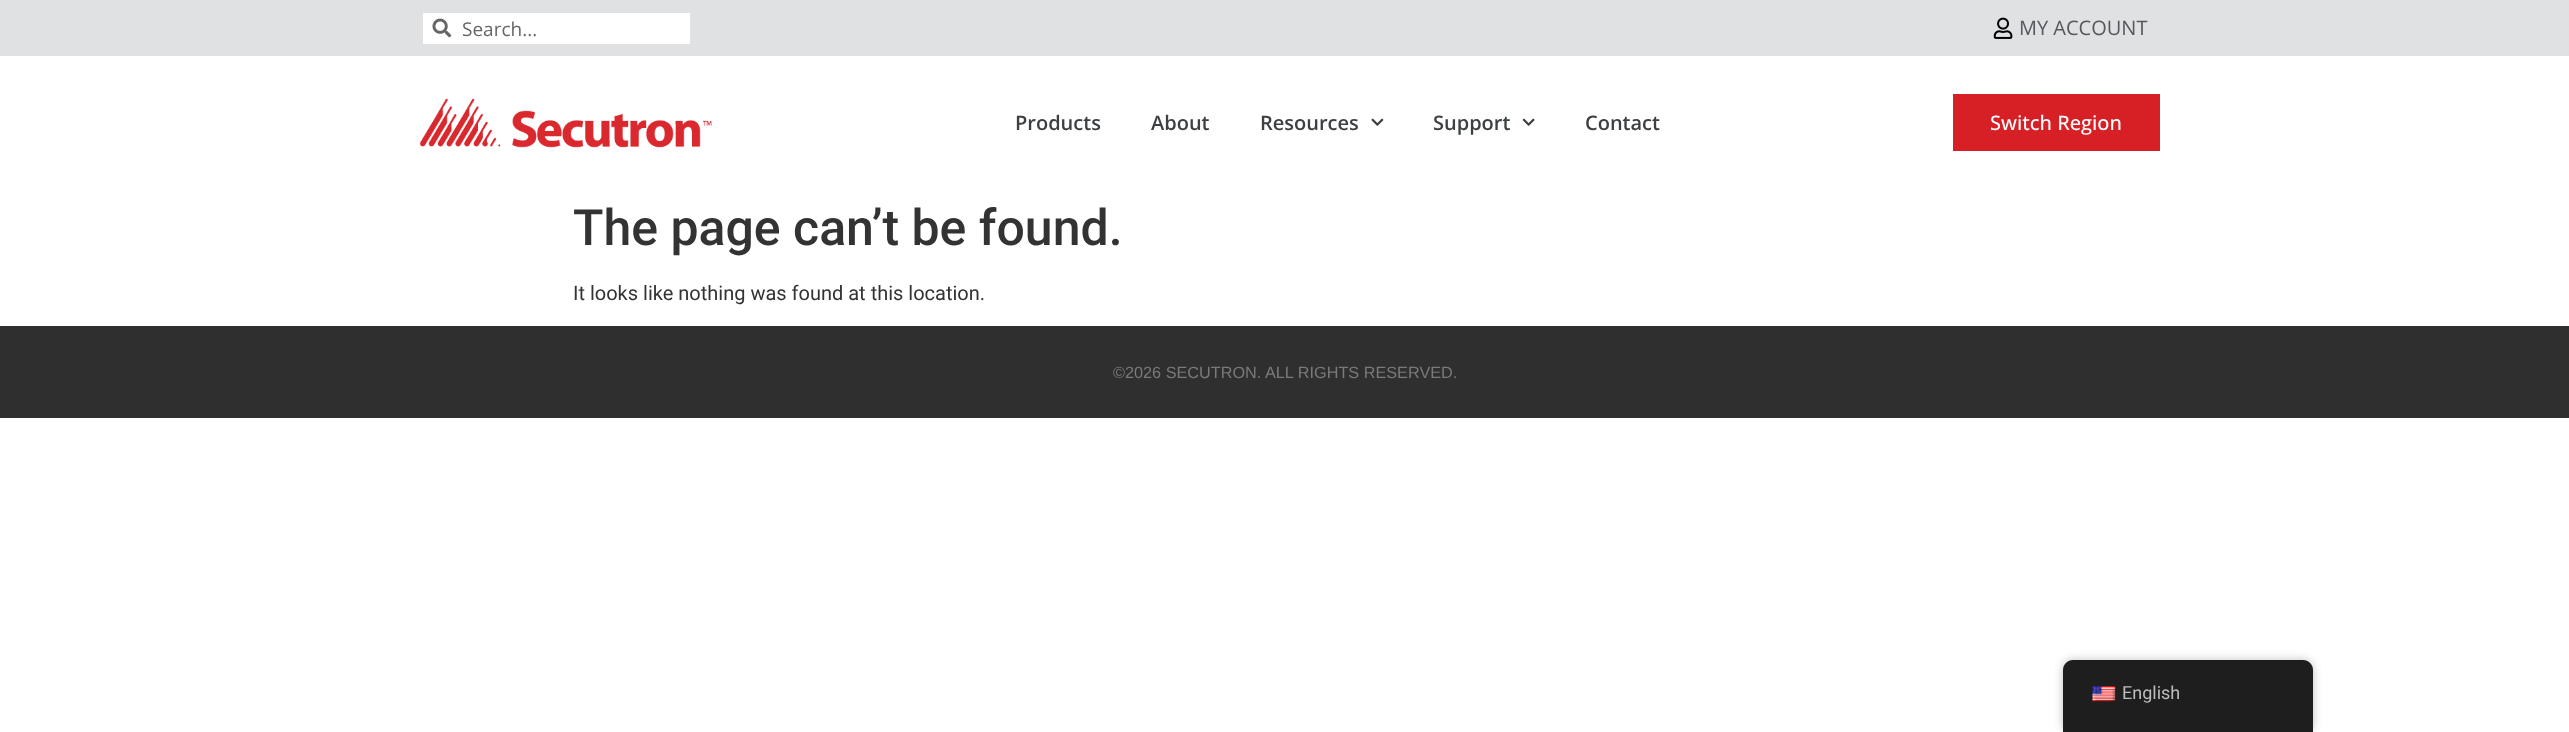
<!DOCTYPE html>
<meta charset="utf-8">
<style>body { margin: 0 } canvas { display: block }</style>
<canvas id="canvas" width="2569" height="732"></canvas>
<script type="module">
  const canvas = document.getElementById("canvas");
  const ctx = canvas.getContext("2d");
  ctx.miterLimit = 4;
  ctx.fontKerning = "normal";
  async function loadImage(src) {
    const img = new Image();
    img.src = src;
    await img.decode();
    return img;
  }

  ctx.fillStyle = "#ffffff";
  ctx.fillRect(0, 0, 2569, 732);
  ctx.fillStyle = "#e0e1e2";
  ctx.fillRect(0, 0, 2569, 56);
  ctx.fillStyle = "#ffffff";
  ctx.fillRect(423, 13, 267, 31);
  ctx.drawImage(await loadImage("img1.png"), 432, 18, 20, 20);
  ctx.font = "19px Open Sans";
  ctx.fillStyle = "#666666";
  ctx.fillText("Search...", 462, 36);
  ctx.drawImage(await loadImage("img2.png"), 1993, 17, 20, 22);
  ctx.font = "20px Open Sans";
  ctx.fillStyle = "#54595f";
  ctx.fillText("MY ACCOUNT", 2019, 35);
  ctx.drawImage(await loadImage("img3.png"), 419, 98, 293, 50);
  ctx.font = "600 20px Open Sans";
  ctx.fillStyle = "#3c4043";
  ctx.fillText("Products", 1015, 130);
  ctx.fillText("About", 1151, 130);
  ctx.fillText("Resources", 1260, 130);
  ctx.drawImage(await loadImage("img4.png"), 1371, 118, 13, 8);
  ctx.fillText("Support", 1433, 130);
  ctx.drawImage(await loadImage("img5.png"), 1522, 118, 13, 8);
  ctx.fillText("Contact", 1585, 130);
  ctx.fillStyle = "#d62025";
  ctx.fillRect(1953, 94, 207, 57);
  ctx.font = "500 20px Open Sans";
  ctx.fillStyle = "#ffffff";
  ctx.fillText("Switch Region", 1990, 130);
  ctx.font = "500 50px Roboto";
  ctx.fillStyle = "#333333";
  ctx.fillText("The page can’t be found.", 573, 245);
  ctx.font = "20px Roboto";
  ctx.fillText("It looks like nothing was found at this location.", 573, 300);
  ctx.fillStyle = "#302f2f";
  ctx.fillRect(0, 326, 2569, 92);
  ctx.font = "16.25px Liberation Sans";
  ctx.fillStyle = "#7a7a7a";
  ctx.fillText("©2026 SECUTRON. ALL RIGHTS RESERVED.", 1113, 378);
  ctx.fillStyle = "rgba(0, 0, 0, 0.25)";
  ctx.filter = "blur(5px)";
  ctx.beginPath();
  ctx.roundRect(2063, 660, 250, 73, 10);
  ctx.fill();
  ctx.filter = "none";
  ctx.fillStyle = "#1e1e1e";
  ctx.beginPath();
  ctx.moveTo(2073, 660);
  ctx.lineTo(2303, 660);
  ctx.bezierCurveTo(2308.5, 660, 2313, 664.5, 2313, 670);
  ctx.lineTo(2313, 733);
  ctx.lineTo(2063, 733);
  ctx.lineTo(2063, 670);
  ctx.bezierCurveTo(2063, 664.5, 2067.5, 660, 2073, 660);
  ctx.closePath();
  ctx.fill();
  ctx.drawImage(await loadImage("img6.png"), 2092, 686, 24, 16);
  ctx.font = "18px Roboto";
  ctx.fillStyle = "#bdbdbd";
  ctx.fillText("English", 2122, 699);
</script>
